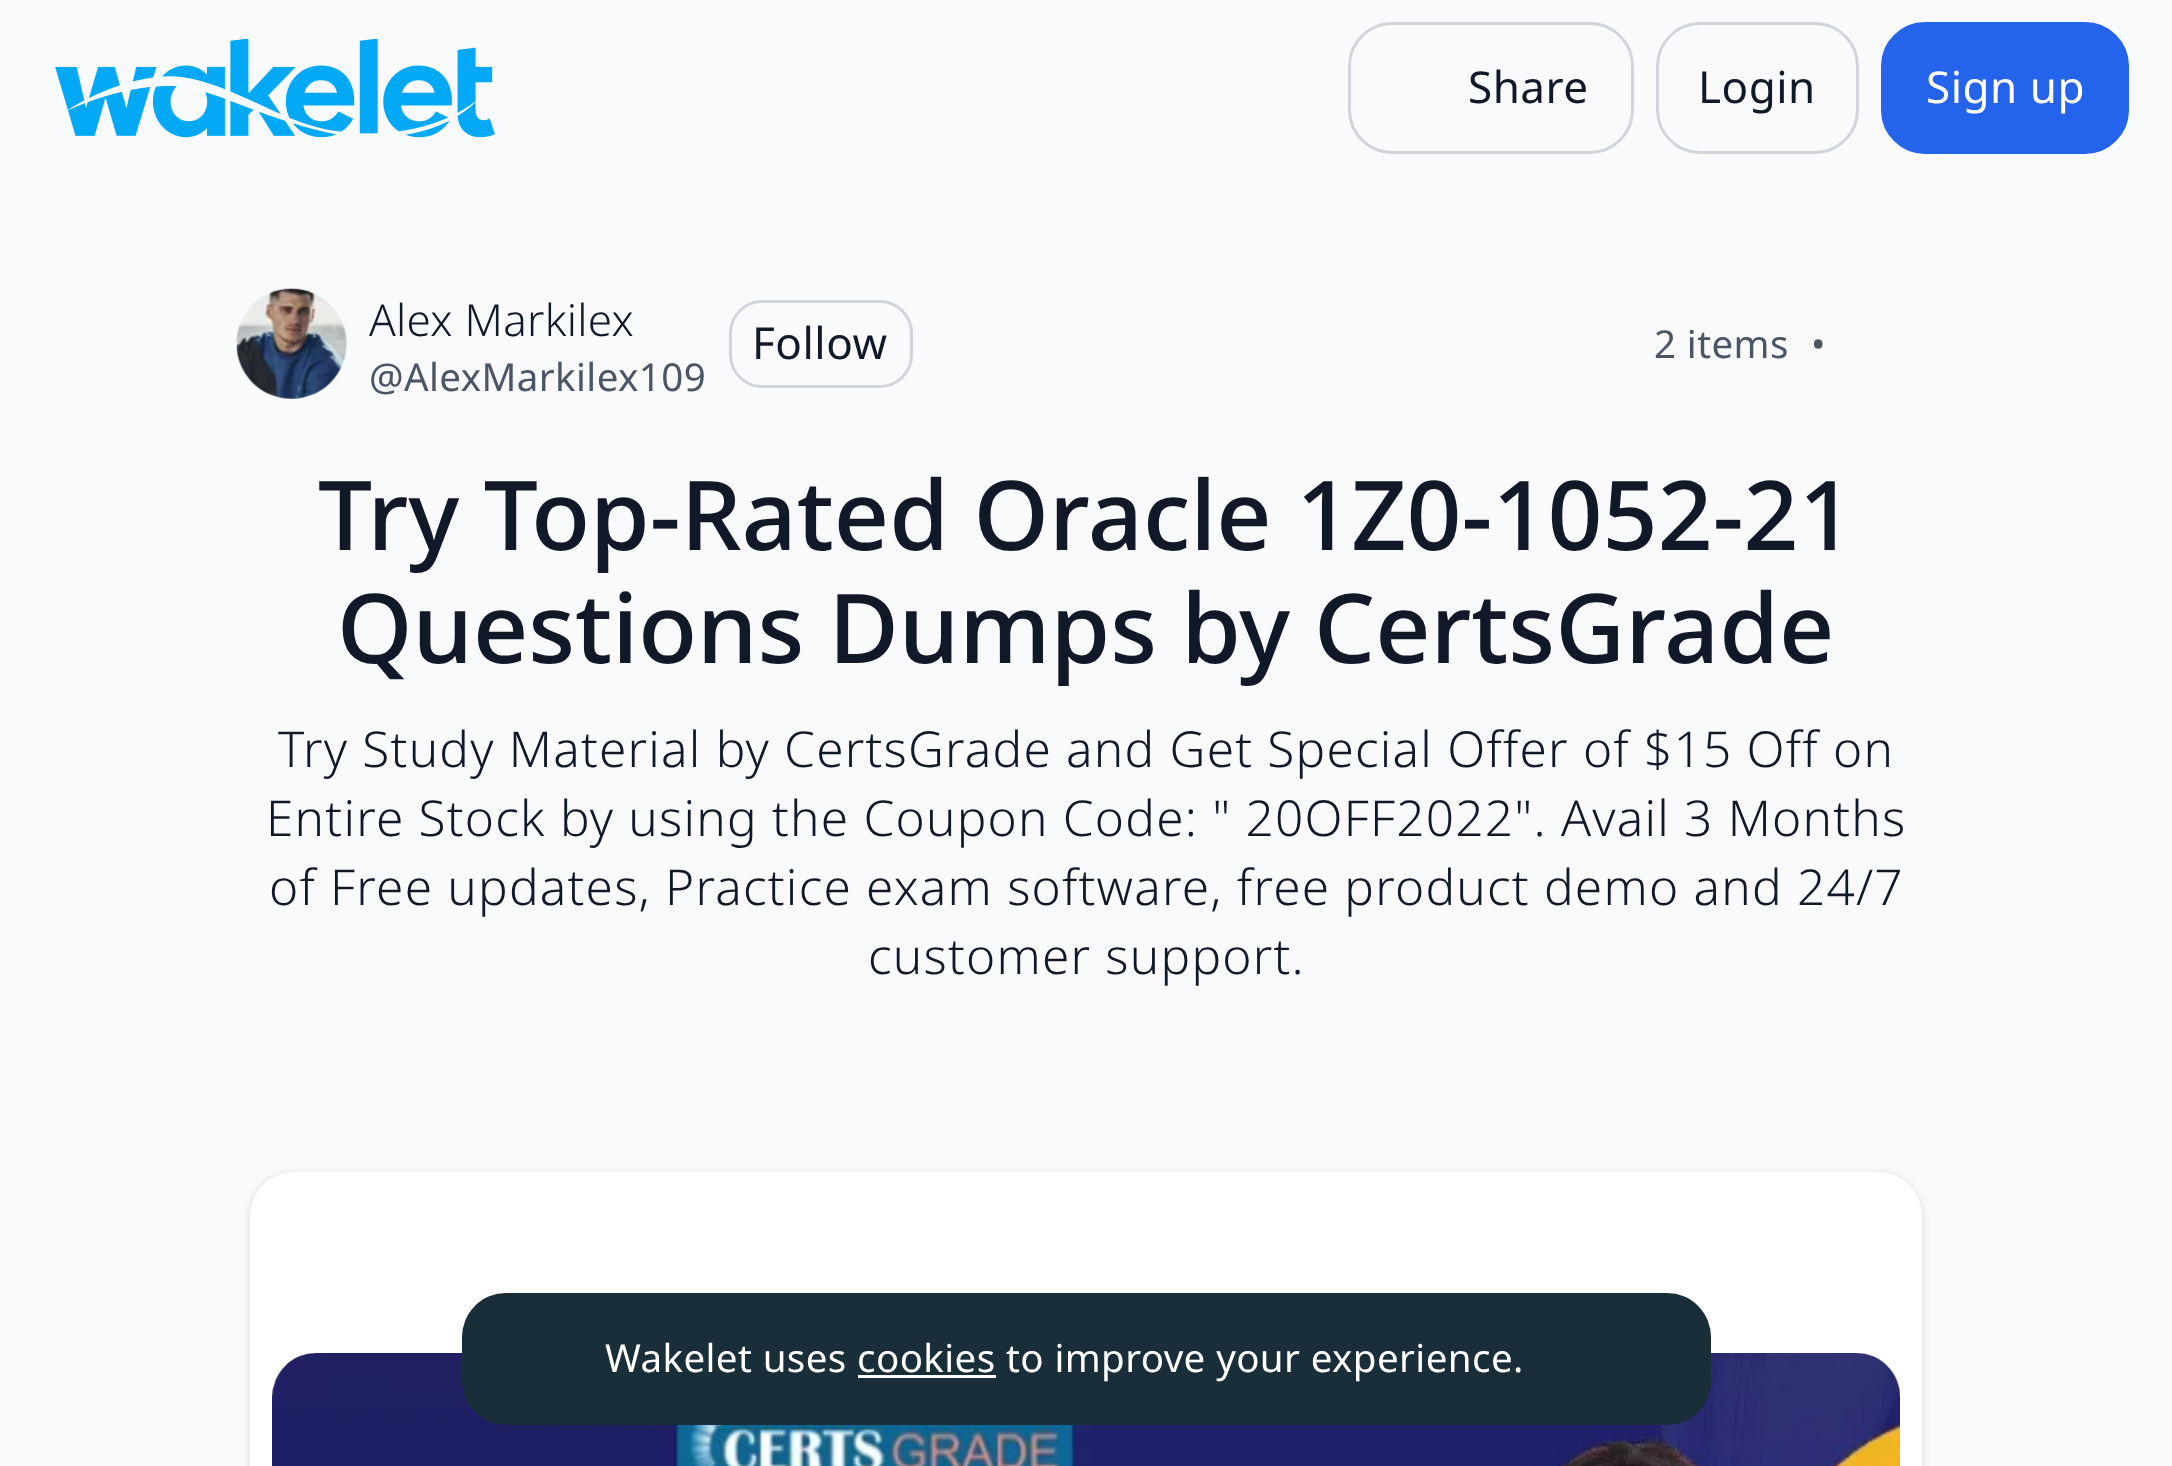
<!DOCTYPE html>
<meta charset="utf-8">
<style>body { margin: 0 } canvas { display: block }</style>
<canvas id="canvas" width="2172" height="1466"></canvas>
<script type="module">
  const canvas = document.getElementById("canvas");
  const ctx = canvas.getContext("2d");
  ctx.miterLimit = 4;
  ctx.fontKerning = "normal";
  async function loadImage(src) {
    const img = new Image();
    img.src = src;
    await img.decode();
    return img;
  }

  ctx.fillStyle = "#f9fafb";
  ctx.fillRect(0, 0, 2172, 1466);
  ctx.drawImage(await loadImage("img1.png"), 55, 39, 440, 99);
  ctx.beginPath();
  ctx.roundRect(1349.5, 23.5, 283, 129, 42.5);
  ctx.strokeStyle = "#d1d5db";
  ctx.lineWidth = 3;
  ctx.stroke();
  ctx.letterSpacing = "0.5px";
  ctx.font = "44px Noto Sans";
  ctx.fillStyle = "#111827";
  ctx.fillText("Share", 1468, 103);
  ctx.beginPath();
  ctx.roundRect(1657.5, 23.5, 200, 129, 42.5);
  ctx.stroke();
  ctx.fillText("Login", 1698, 103);
  ctx.fillStyle = "#2463eb";
  ctx.beginPath();
  ctx.roundRect(1882.5, 23.5, 245, 129, 42.5);
  ctx.fill();
  ctx.strokeStyle = "#2463eb";
  ctx.stroke();
  ctx.fillStyle = "#ffffff";
  ctx.fillText("Sign up", 1926, 103);
  ctx.drawImage(await loadImage("img2.png"), 236, 288, 111, 111);
  ctx.letterSpacing = "0.3px";
  ctx.font = "300 44px Noto Sans";
  ctx.fillStyle = "#111827";
  ctx.fillText("Alex Markilex", 369, 336);
  ctx.letterSpacing = "0.4px";
  ctx.font = "38.5px Noto Sans";
  ctx.fillStyle = "#4b5563";
  ctx.fillText("@AlexMarkilex109", 369, 391);
  ctx.beginPath();
  ctx.roundRect(730.5, 301.5, 181, 85, 31.5);
  ctx.strokeStyle = "#d1d5db";
  ctx.stroke();
  ctx.letterSpacing = "0.5px";
  ctx.font = "44px Noto Sans";
  ctx.fillStyle = "#111827";
  ctx.fillText("Follow", 752, 359);
  ctx.letterSpacing = "0.4px";
  ctx.font = "38.5px Noto Sans";
  ctx.fillStyle = "#4b5563";
  ctx.fillText("2 items", 1654, 358);
  ctx.fillText("•", 1811, 358);
  ctx.letterSpacing = "0px";
  ctx.wordSpacing = "-0.5px";
  ctx.font = "500 96.25px Noto Sans";
  ctx.fillStyle = "#111827";
  ctx.fillText("Try Top-Rated Oracle 1Z0-1052-21", 318, 550);
  ctx.wordSpacing = "-1px";
  ctx.fillText("Questions Dumps by CertsGrade", 337, 663);
  ctx.letterSpacing = "1.23px";
  ctx.wordSpacing = "0px";
  ctx.font = "300 49.5px Noto Sans";
  ctx.fillText("Try Study Material by CertsGrade and Get Special Offer of $15 Off on", 278, 767);
  ctx.fillText("Entire Stock by using the Coupon Code: \" 20OFF2022\". Avail 3 Months", 266, 836);
  ctx.fillText("of Free updates, Practice exam software, free product demo and 24/7", 269, 905);
  ctx.fillText("customer support.", 868, 974);
  ctx.fillStyle = "rgba(0, 24, 61, 0.06)";
  ctx.filter = "blur(3px)";
  ctx.beginPath();
  ctx.roundRect(250, 1174, 1672, 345, 44);
  ctx.fill();
  ctx.filter = "none";
  ctx.fillStyle = "rgba(0, 24, 61, 0.1)";
  ctx.filter = "blur(4px)";
  ctx.beginPath();
  ctx.roundRect(250, 1174, 1672, 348, 44);
  ctx.fill();
  ctx.filter = "none";
  ctx.fillStyle = "#ffffff";
  ctx.beginPath();
  ctx.moveTo(294, 1172);
  ctx.lineTo(1878, 1172);
  ctx.bezierCurveTo(1902.5, 1172, 1922, 1191.5, 1922, 1216);
  ctx.lineTo(1922, 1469);
  ctx.lineTo(250, 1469);
  ctx.lineTo(250, 1216);
  ctx.bezierCurveTo(250, 1191.5, 269.5, 1172, 294, 1172);
  ctx.closePath();
  ctx.fill();
  ctx.drawImage(await loadImage("img3.png"), 272, 1353, 1628, 113);
  ctx.fillStyle = "#192e38";
  ctx.beginPath();
  ctx.roundRect(462, 1293, 1249, 132, 44);
  ctx.fill();
  ctx.letterSpacing = "0.4px";
  ctx.font = "38.5px Noto Sans";
  ctx.fillStyle = "#ffffff";
  ctx.fillText("Wakelet uses cookies to improve your experience.", 605, 1372);
  ctx.fillRect(858, 1375, 138, 3);
</script>
